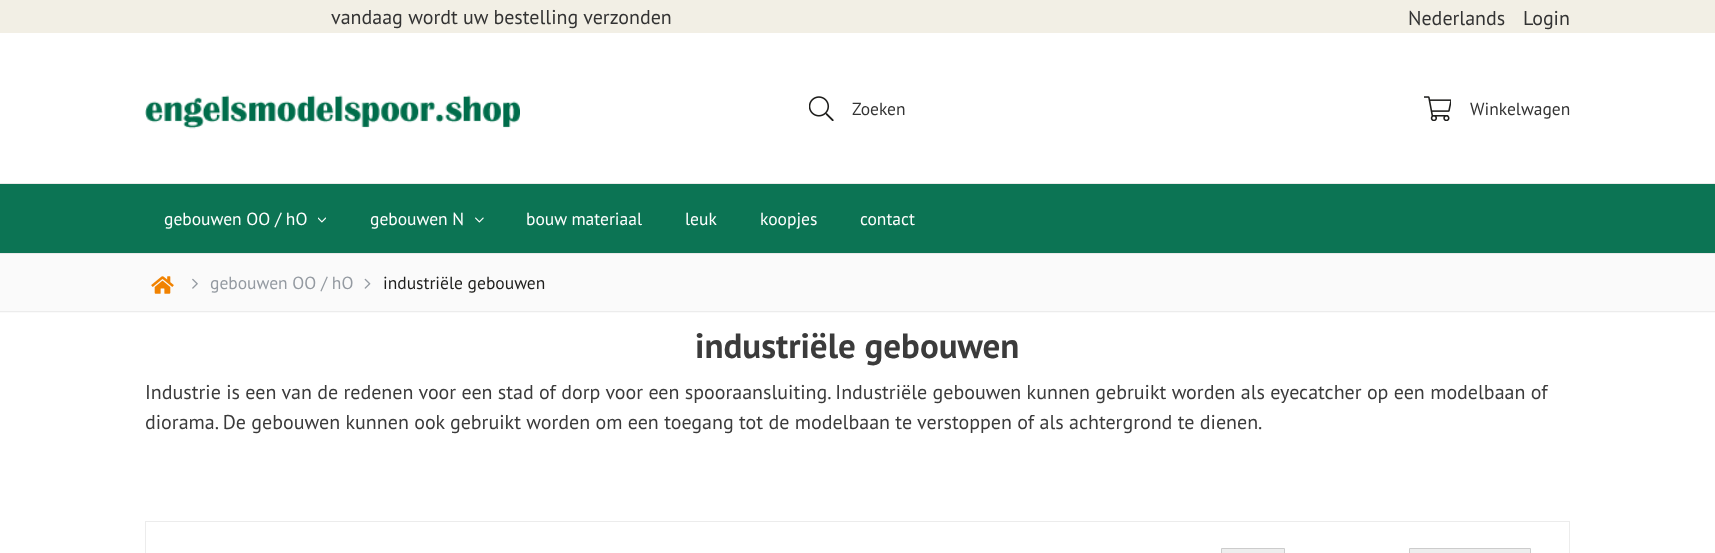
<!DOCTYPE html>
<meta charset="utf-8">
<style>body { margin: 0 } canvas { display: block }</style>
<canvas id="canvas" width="1715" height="553"></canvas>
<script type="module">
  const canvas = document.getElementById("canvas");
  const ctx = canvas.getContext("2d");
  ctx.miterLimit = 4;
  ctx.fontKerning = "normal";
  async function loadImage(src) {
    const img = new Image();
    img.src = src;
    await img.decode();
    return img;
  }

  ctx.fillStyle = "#ffffff";
  ctx.fillRect(0, 0, 1715, 553);
  ctx.fillStyle = "#f2efe5";
  ctx.fillRect(0, 0, 1715, 33);
  ctx.font = "20px PT Sans";
  ctx.fillStyle = "#333333";
  ctx.fillText("vandaag wordt uw bestelling verzonden", 331, 24);
  ctx.fillText("Nederlands", 1408, 25);
  ctx.fillText("Login", 1523, 25);
  ctx.drawImage(await loadImage("img1.png"), 145, 95, 375, 34);
  ctx.drawImage(await loadImage("img2.png"), 809, 96, 25, 25);
  ctx.font = "17.5px PT Sans";
  ctx.fillText("Zoeken", 852, 115);
  ctx.drawImage(await loadImage("img3.png"), 1424, 96, 27, 25);
  ctx.fillText("Winkelwagen", 1470, 115);
  ctx.fillStyle = "#0c7454";
  ctx.fillRect(0, 184, 1715, 69);
  ctx.fillStyle = "#eaeaea";
  ctx.fillRect(0, 183, 1715, 1);
  ctx.fillRect(0, 253, 1715, 1);
  ctx.fillStyle = "#ffffff";
  ctx.fillText("gebouwen OO / hO", 164, 225);
  ctx.drawImage(await loadImage("img4.png"), 318, 217, 8, 6);
  ctx.fillText("gebouwen N", 370, 225);
  ctx.drawImage(await loadImage("img5.png"), 475, 217, 9, 6);
  ctx.fillText("bouw materiaal", 526, 225);
  ctx.fillText("leuk", 685, 225);
  ctx.fillText("koopjes", 760, 225);
  ctx.fillText("contact", 860, 225);
  ctx.fillStyle = "#fafafa";
  ctx.fillRect(0, 254, 1715, 59);
  ctx.fillStyle = "#ececec";
  ctx.fillRect(0, 311, 1715, 1);
  ctx.drawImage(await loadImage("img6.png"), 151, 276, 23, 18);
  ctx.drawImage(await loadImage("img7.png"), 192, 278, 6, 11);
  ctx.fillStyle = "#949aa1";
  ctx.fillText("gebouwen OO / hO", 210, 289);
  ctx.drawImage(await loadImage("img8.png"), 364, 278, 7, 11);
  ctx.fillStyle = "#1d1d1b";
  ctx.fillText("industriële gebouwen", 383, 289);
  ctx.font = "bold 35px PT Sans";
  ctx.fillStyle = "#3b3b3b";
  ctx.fillText("industriële gebouwen", 695, 358);
  ctx.font = "20px PT Sans";
  ctx.fillText("Industrie is een van de redenen voor een stad of dorp voor een spooraansluiting. Industriële gebouwen kunnen gebruikt worden als eyecatcher op een modelbaan of", 145, 399);
  ctx.fillText("diorama. De gebouwen kunnen ook gebruikt worden om een toegang tot de modelbaan te verstoppen of als achtergrond te dienen.", 145, 429);
  ctx.strokeStyle = "#ececec";
  ctx.strokeRect(145.5, 521.5, 1424, 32);
  ctx.fillStyle = "#eeeeee";
  ctx.beginPath();
  ctx.rect(1221.5, 548.5, 63, 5);
  ctx.fill();
  ctx.strokeStyle = "#cccccc";
  ctx.stroke();
  ctx.beginPath();
  ctx.rect(1409.5, 548.5, 121, 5);
  ctx.fill();
  ctx.stroke();
</script>
